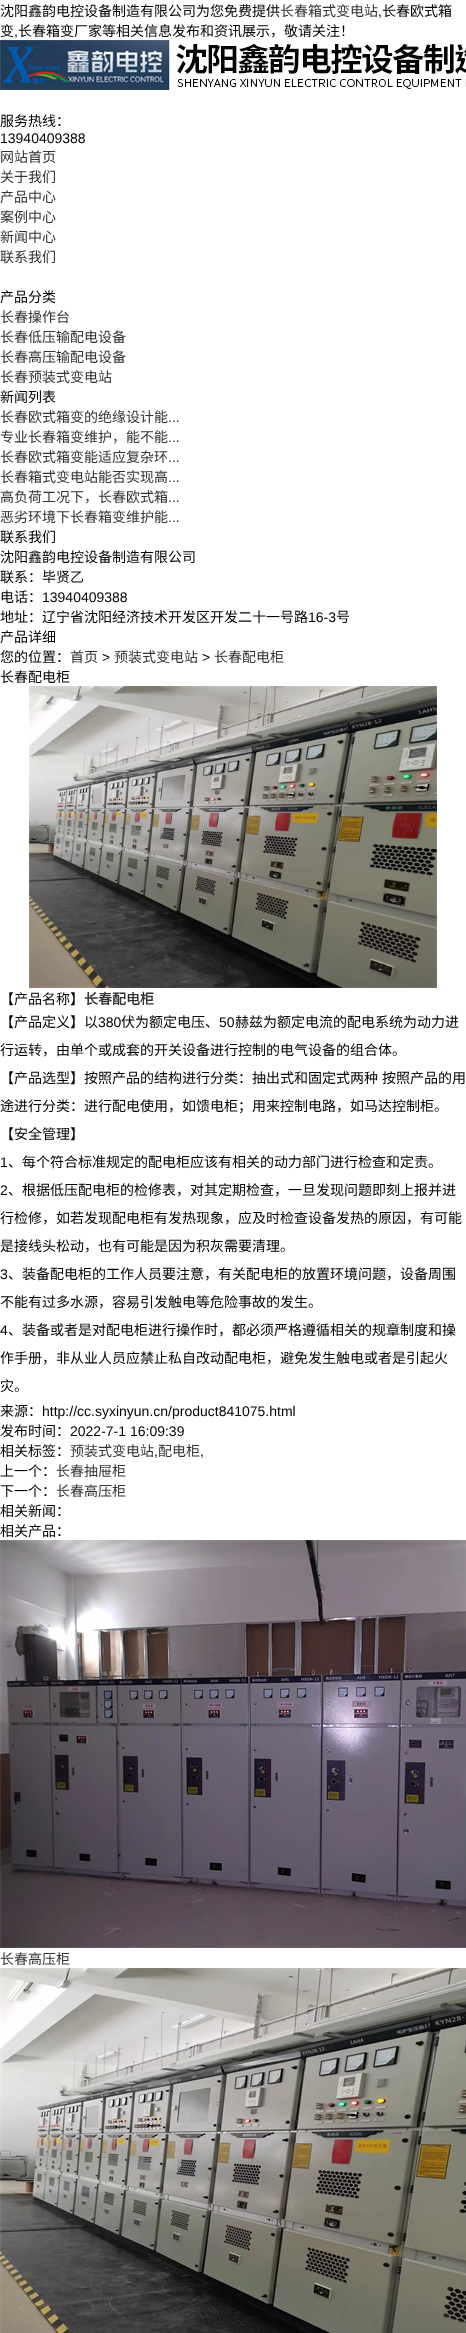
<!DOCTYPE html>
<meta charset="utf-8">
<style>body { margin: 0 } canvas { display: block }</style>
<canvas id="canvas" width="466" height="2333"></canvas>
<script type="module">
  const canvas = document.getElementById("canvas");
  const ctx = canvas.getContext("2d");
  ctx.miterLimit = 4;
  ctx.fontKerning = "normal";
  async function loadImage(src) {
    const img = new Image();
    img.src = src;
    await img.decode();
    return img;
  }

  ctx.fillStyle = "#ffffff";
  ctx.fillRect(0, 0, 466, 2333);
  ctx.font = "14px Noto Sans CJK SC";
  ctx.fillStyle = "#000000";
  ctx.fillText("沈阳鑫韵电控设备制造有限公司为您免费提供", 0, 16);
  ctx.fillStyle = "#333333";
  ctx.fillText("长春箱式变电站", 280, 16);
  ctx.font = "14px Liberation Sans";
  ctx.fillStyle = "#000000";
  ctx.fillText(",", 378, 16);
  ctx.font = "14px Noto Sans CJK SC";
  ctx.fillText("长春欧式箱", 382, 16);
  ctx.fillText("变", 0, 36);
  ctx.font = "14px Liberation Sans";
  ctx.fillText(",", 14, 36);
  ctx.font = "14px Noto Sans CJK SC";
  ctx.fillText("长春箱变厂家等相关信息发布和资讯展示，敬请关注！", 18, 36);
  ctx.drawImage(await loadImage("img1.png"), 0, 40, 466, 50);
  ctx.fillText("服务热线：", 0, 126);
  ctx.font = "14px Liberation Sans";
  ctx.fillText("13940409388", 0, 143);
  ctx.font = "14px Noto Sans CJK SC";
  ctx.fillStyle = "#333333";
  ctx.fillText("网站首页", 0, 162);
  ctx.fillText("关于我们", 0, 182);
  ctx.fillText("产品中心", 0, 202);
  ctx.fillText("案例中心", 0, 222);
  ctx.fillText("新闻中心", 0, 242);
  ctx.fillText("联系我们", 0, 262);
  ctx.fillStyle = "#000000";
  ctx.fillText("产品分类", 0, 302);
  ctx.fillStyle = "#333333";
  ctx.fillText("长春操作台", 0, 322);
  ctx.fillText("长春低压输配电设备", 0, 342);
  ctx.fillText("长春高压输配电设备", 0, 362);
  ctx.fillText("长春预装式变电站", 0, 382);
  ctx.fillStyle = "#000000";
  ctx.fillText("新闻列表", 0, 402);
  ctx.fillStyle = "#333333";
  ctx.fillText("长春欧式箱变的绝缘设计能", 0, 422);
  ctx.font = "14px Liberation Sans";
  ctx.fillText("...", 168, 422);
  ctx.font = "14px Noto Sans CJK SC";
  ctx.fillText("专业长春箱变维护，能不能", 0, 442);
  ctx.font = "14px Liberation Sans";
  ctx.fillText("...", 168, 442);
  ctx.font = "14px Noto Sans CJK SC";
  ctx.fillText("长春欧式箱变能适应复杂环", 0, 462);
  ctx.font = "14px Liberation Sans";
  ctx.fillText("...", 168, 462);
  ctx.font = "14px Noto Sans CJK SC";
  ctx.fillText("长春箱式变电站能否实现高", 0, 482);
  ctx.font = "14px Liberation Sans";
  ctx.fillText("...", 168, 482);
  ctx.font = "14px Noto Sans CJK SC";
  ctx.fillText("高负荷工况下，长春欧式箱", 0, 502);
  ctx.font = "14px Liberation Sans";
  ctx.fillText("...", 168, 502);
  ctx.font = "14px Noto Sans CJK SC";
  ctx.fillText("恶劣环境下长春箱变维护能", 0, 522);
  ctx.font = "14px Liberation Sans";
  ctx.fillText("...", 168, 522);
  ctx.font = "14px Noto Sans CJK SC";
  ctx.fillStyle = "#000000";
  ctx.fillText("联系我们", 0, 542);
  ctx.fillText("沈阳鑫韵电控设备制造有限公司", 0, 562);
  ctx.fillText("联系：毕贤乙", 0, 582);
  ctx.fillText("电话：", 0, 602);
  ctx.font = "14px Liberation Sans";
  ctx.fillText("13940409388", 42, 602);
  ctx.font = "14px Noto Sans CJK SC";
  ctx.fillText("地址：辽宁省沈阳经济技术开发区开发二十一号路", 0, 622);
  ctx.font = "14px Liberation Sans";
  ctx.fillText("16-3", 308, 622);
  ctx.font = "14px Noto Sans CJK SC";
  ctx.fillText("号", 336, 622);
  ctx.fillText("产品详细", 0, 642);
  ctx.fillText("您的位置：", 0, 662);
  ctx.fillStyle = "#333333";
  ctx.fillText("首页", 70, 662);
  ctx.font = "14px Liberation Sans";
  ctx.fillStyle = "#000000";
  ctx.fillText(">", 102, 662);
  ctx.font = "14px Noto Sans CJK SC";
  ctx.fillStyle = "#333333";
  ctx.fillText("预装式变电站", 114, 662);
  ctx.font = "14px Liberation Sans";
  ctx.fillStyle = "#000000";
  ctx.fillText(">", 202, 662);
  ctx.font = "14px Noto Sans CJK SC";
  ctx.fillStyle = "#333333";
  ctx.fillText("长春配电柜", 214, 662);
  ctx.fillStyle = "#000000";
  ctx.fillText("长春配电柜", 0, 682);
  ctx.drawImage(await loadImage("img2.png"), 29, 686, 408, 302);
  ctx.fillText("【产品名称】", 0, 1004);
  ctx.font = "bold 14px Noto Sans CJK SC";
  ctx.fillStyle = "#333333";
  ctx.fillText("长春配电柜", 84, 1004);
  ctx.font = "14px Noto Sans CJK SC";
  ctx.fillStyle = "#000000";
  ctx.fillText("【产品定义】以", 0, 1027);
  ctx.font = "14px Liberation Sans";
  ctx.fillText("380", 98, 1027);
  ctx.font = "14px Noto Sans CJK SC";
  ctx.fillText("伏为额定电压、", 121, 1027);
  ctx.font = "14px Liberation Sans";
  ctx.fillText("50", 219, 1027);
  ctx.font = "14px Noto Sans CJK SC";
  ctx.fillText("赫兹为额定电流的配电系统为动力进", 235, 1027);
  ctx.fillText("行运转，由单个或成套的开关设备进行控制的电气设备的组合体。", 0, 1055);
  ctx.fillText("【产品选型】按照产品的结构进行分类：抽出式和固定式两种", 0, 1083);
  ctx.fillText("按照产品的用", 382, 1083);
  ctx.fillText("途进行分类：进行配电使用，如馈电柜；用来控制电路，如马达控制柜。", 0, 1111);
  ctx.fillText("【安全管理】", 0, 1139);
  ctx.font = "14px Liberation Sans";
  ctx.fillText("1", 0, 1167);
  ctx.font = "14px Noto Sans CJK SC";
  ctx.fillText("、每个符合标准规定的配电柜应该有相关的动力部门进行检查和定责。", 8, 1167);
  ctx.font = "14px Liberation Sans";
  ctx.fillText("2", 0, 1195);
  ctx.font = "14px Noto Sans CJK SC";
  ctx.fillText("、根据低压配电柜的检修表，对其定期检查，一旦发现问题即刻上报并进", 8, 1195);
  ctx.fillText("行检修，如若发现配电柜有发热现象，应及时检查设备发热的原因，有可能", 0, 1223);
  ctx.fillText("是接线头松动，也有可能是因为积灰需要清理。", 0, 1251);
  ctx.font = "14px Liberation Sans";
  ctx.fillText("3", 0, 1279);
  ctx.font = "14px Noto Sans CJK SC";
  ctx.fillText("、装备配电柜的工作人员要注意，有关配电柜的放置环境问题，设备周围", 8, 1279);
  ctx.fillText("不能有过多水源，容易引发触电等危险事故的发生。", 0, 1307);
  ctx.font = "14px Liberation Sans";
  ctx.fillText("4", 0, 1335);
  ctx.font = "14px Noto Sans CJK SC";
  ctx.fillText("、装备或者是对配电柜进行操作时，都必须严格遵循相关的规章制度和操", 8, 1335);
  ctx.fillText("作手册，非从业人员应禁止私自改动配电柜，避免发生触电或者是引起火", 0, 1363);
  ctx.fillText("灾。", 0, 1391);
  ctx.fillText("来源：", 0, 1416);
  ctx.font = "14px Liberation Sans";
  ctx.fillText("http://cc.syxinyun.cn/product841075.html", 42, 1416);
  ctx.font = "14px Noto Sans CJK SC";
  ctx.fillText("发布时间：", 0, 1436);
  ctx.font = "14px Liberation Sans";
  ctx.fillText("2022-7-1 16:09:39", 70, 1436);
  ctx.font = "14px Noto Sans CJK SC";
  ctx.fillText("相关标签：", 0, 1456);
  ctx.fillStyle = "#333333";
  ctx.fillText("预装式变电站", 70, 1456);
  ctx.font = "14px Liberation Sans";
  ctx.fillStyle = "#000000";
  ctx.fillText(",", 154, 1456);
  ctx.font = "14px Noto Sans CJK SC";
  ctx.fillStyle = "#333333";
  ctx.fillText("配电柜", 158, 1456);
  ctx.font = "14px Liberation Sans";
  ctx.fillStyle = "#000000";
  ctx.fillText(",", 200, 1456);
  ctx.font = "14px Noto Sans CJK SC";
  ctx.fillText("上一个：", 0, 1476);
  ctx.fillStyle = "#333333";
  ctx.fillText("长春抽屉柜", 56, 1476);
  ctx.fillStyle = "#000000";
  ctx.fillText("下一个：", 0, 1496);
  ctx.fillStyle = "#333333";
  ctx.fillText("长春高压柜", 56, 1496);
  ctx.fillStyle = "#000000";
  ctx.fillText("相关新闻：", 0, 1516);
  ctx.fillText("相关产品：", 0, 1536);
  ctx.drawImage(await loadImage("img3.png"), 0, 1540, 466, 408);
  ctx.fillStyle = "#333333";
  ctx.fillText("长春高压柜", 0, 1964);
  ctx.drawImage(await loadImage("img4.png"), 0, 1968, 466, 365);
</script>
